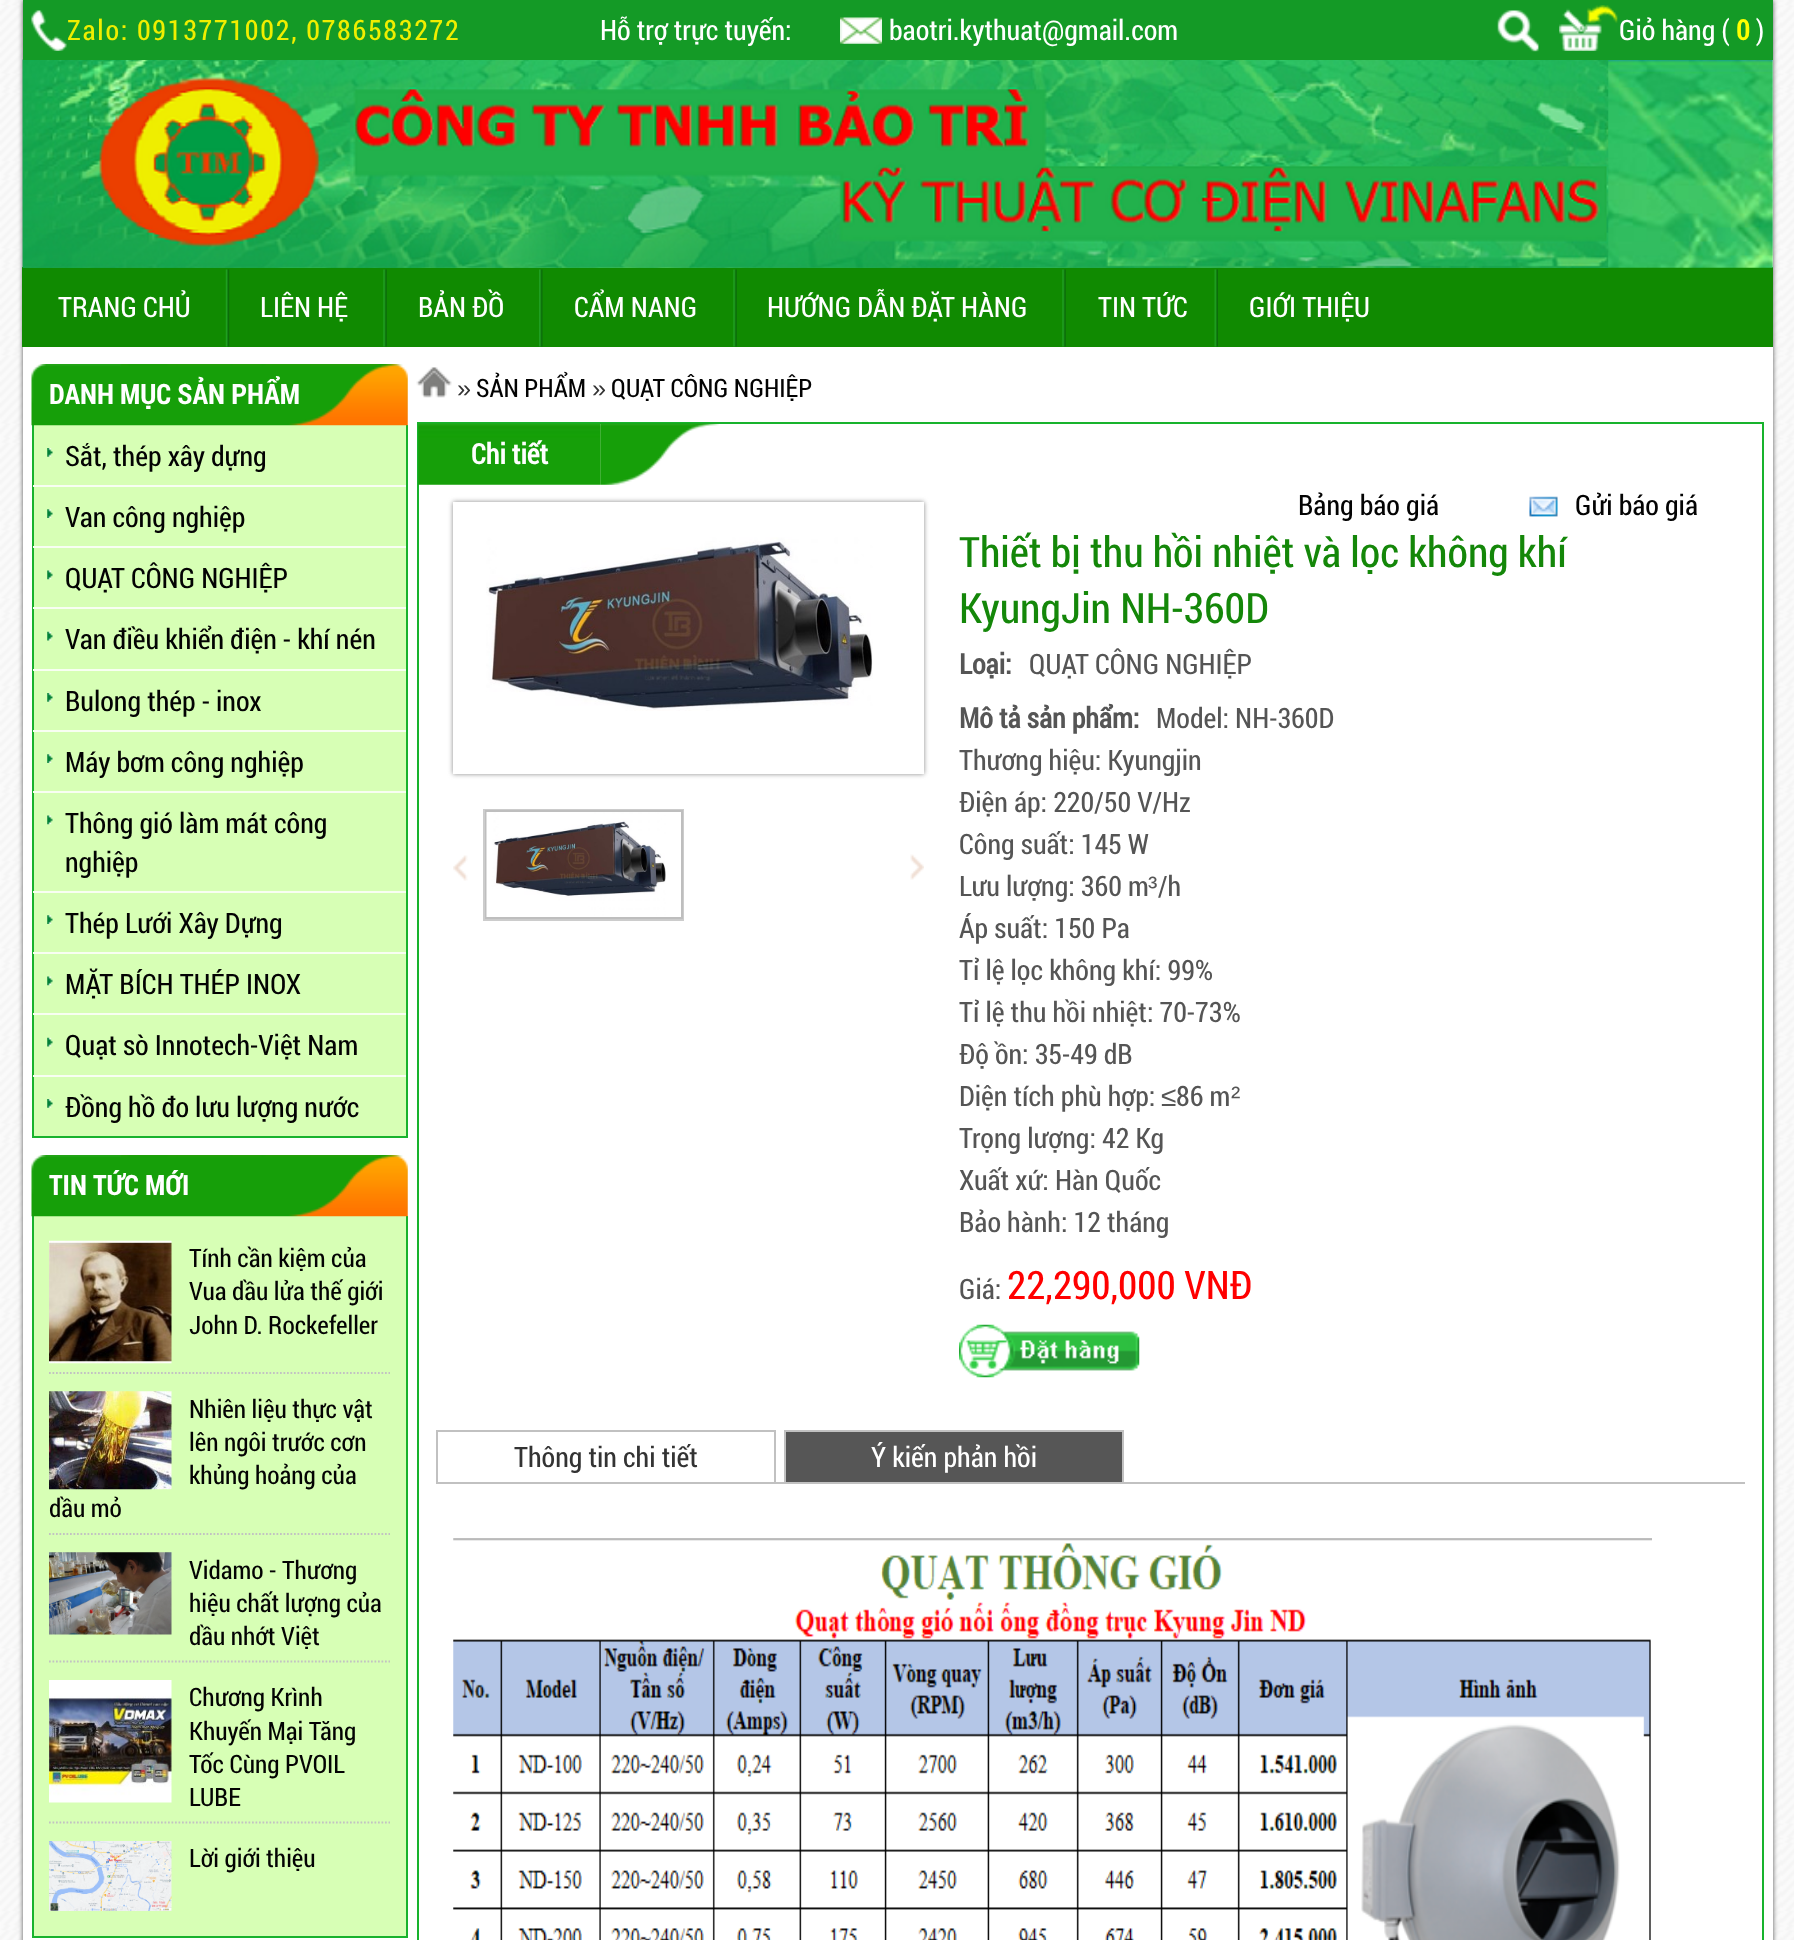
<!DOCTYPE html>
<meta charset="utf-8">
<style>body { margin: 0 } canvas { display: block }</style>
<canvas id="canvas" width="1794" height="1940"></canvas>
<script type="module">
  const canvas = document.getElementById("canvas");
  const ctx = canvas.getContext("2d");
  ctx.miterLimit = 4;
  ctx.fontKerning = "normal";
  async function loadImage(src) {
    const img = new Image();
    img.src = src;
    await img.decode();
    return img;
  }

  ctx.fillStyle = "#ffffff";
  ctx.fillRect(0, 0, 1794, 1940);
  ctx.drawImage(await loadImage("img1.png"), 0, 0, 1794, 1940);
  ctx.fillStyle = "#555555";
  ctx.filter = "blur(2.5px)";
  ctx.beginPath();
  ctx.rect(23, 0, 1750, 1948);
  ctx.fill();
  ctx.filter = "none";
  ctx.fillStyle = "#ffffff";
  ctx.fillRect(23, 60, 1750, 1880);
  ctx.fillStyle = "#108a01";
  ctx.fillRect(22, 267, 1751, 80);
  ctx.drawImage(await loadImage("img6.png"), 22, 59, 1751, 209);
  ctx.drawImage(await loadImage("img7.png"), 22, 59, 1587, 209);
  ctx.fillStyle = "#149a26";
  ctx.fillRect(23, 0, 1750, 60);
  ctx.drawImage(await loadImage("img2.png"), 31, 10, 36, 41);
  ctx.letterSpacing = "1.75px";
  ctx.font = "28px Roboto Condensed";
  ctx.fillStyle = "#efee00";
  ctx.fillText("Zalo: 0913771002, 0786583272", 67, 40);
  ctx.letterSpacing = "0px";
  ctx.fillStyle = "#ffffff";
  ctx.fillText("Hỗ trợ trực tuyến:", 600, 40);
  ctx.drawImage(await loadImage("img3.png"), 840, 17, 42, 27);
  ctx.fillText("baotri.kythuat@gmail.com", 889, 40);
  ctx.drawImage(await loadImage("img4.png"), 1497, 10, 42, 42);
  ctx.drawImage(await loadImage("img5.png"), 1559, 5, 59, 46);
  ctx.fillText("Giỏ hàng (", 1619, 40);
  ctx.font = "bold 28px 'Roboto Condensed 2'";
  ctx.fillStyle = "#ffff00";
  ctx.fillText("0", 1736, 40);
  ctx.font = "28px Roboto Condensed";
  ctx.fillStyle = "#ffffff";
  ctx.fillText(")", 1756, 40);
  ctx.fillText("TRANG CHỦ", 58, 317);
  ctx.drawImage(await loadImage("img8.png"), 225, 269, 5, 78);
  ctx.fillText("LIÊN HỆ", 260, 317);
  ctx.drawImage(await loadImage("img9.png"), 383, 269, 4, 78);
  ctx.fillText("BẢN ĐỒ", 418, 317);
  ctx.drawImage(await loadImage("img10.png"), 539, 269, 4, 78);
  ctx.fillText("CẨM NANG", 574, 317);
  ctx.drawImage(await loadImage("img9.png"), 733, 269, 4, 78);
  ctx.fillText("HƯỚNG DẪN ĐẶT HÀNG", 767, 317);
  ctx.drawImage(await loadImage("img9.png"), 1062, 269, 4, 78);
  ctx.fillText("TIN TỨC", 1098, 317);
  ctx.drawImage(await loadImage("img11.png"), 1214, 269, 4, 78);
  ctx.fillText("GIỚI THIỆU", 1249, 317);
  ctx.fillStyle = "#d7ffb5";
  ctx.fillRect(34, 425, 372, 711);
  ctx.fillStyle = "#18b32d";
  ctx.fillRect(406, 425, 2, 713);
  ctx.fillRect(32, 1136, 376, 2);
  ctx.fillRect(32, 425, 2, 713);
  ctx.drawImage(await loadImage("img12.png"), 31, 364, 377, 62);
  ctx.font = "bold 28px Roboto Condensed";
  ctx.fillStyle = "#ffffff";
  ctx.fillText("DANH MỤC SẢN PHẨM", 49, 404);
  ctx.drawImage(await loadImage("img13.png"), 47, 448, 6, 9);
  ctx.fillStyle = "#f8fef2";
  ctx.fillRect(33, 485, 373, 2);
  ctx.font = "28px Roboto Condensed";
  ctx.fillStyle = "#030303";
  ctx.fillText("Sắt, thép xây dựng", 65, 466);
  ctx.drawImage(await loadImage("img14.png"), 47, 509, 6, 9);
  ctx.fillStyle = "#f8fef2";
  ctx.fillRect(33, 546, 373, 2);
  ctx.fillStyle = "#030303";
  ctx.fillText("Van công nghiệp", 65, 527);
  ctx.drawImage(await loadImage("img15.png"), 47, 570, 6, 10);
  ctx.fillStyle = "#f8fef2";
  ctx.fillRect(33, 607, 373, 2);
  ctx.fillStyle = "#030303";
  ctx.fillText("QUẠT CÔNG NGHIỆP", 65, 588);
  ctx.drawImage(await loadImage("img16.png"), 47, 631, 6, 10);
  ctx.fillStyle = "#f8fef2";
  ctx.fillRect(33, 669, 373, 2);
  ctx.fillStyle = "#030303";
  ctx.fillText("Van điều khiển điện - khí nén", 65, 649);
  ctx.drawImage(await loadImage("img13.png"), 47, 693, 6, 9);
  ctx.fillStyle = "#f8fef2";
  ctx.fillRect(33, 730, 373, 2);
  ctx.fillStyle = "#030303";
  ctx.fillText("Bulong thép - inox", 65, 711);
  ctx.drawImage(await loadImage("img14.png"), 47, 754, 6, 9);
  ctx.fillStyle = "#f8fef2";
  ctx.fillRect(33, 791, 373, 2);
  ctx.fillStyle = "#030303";
  ctx.fillText("Máy bơm công nghiệp", 65, 772);
  ctx.drawImage(await loadImage("img15.png"), 47, 815, 6, 10);
  ctx.fillStyle = "#f8fef2";
  ctx.fillRect(33, 891, 373, 2);
  ctx.fillStyle = "#030303";
  ctx.fillText("Thông gió làm mát công", 65, 833);
  ctx.fillText("nghiệp", 65, 872);
  ctx.drawImage(await loadImage("img14.png"), 47, 915, 6, 9);
  ctx.fillStyle = "#f8fef2";
  ctx.fillRect(33, 952, 373, 2);
  ctx.fillStyle = "#030303";
  ctx.fillText("Thép Lưới Xây Dựng", 65, 933);
  ctx.drawImage(await loadImage("img15.png"), 47, 976, 6, 10);
  ctx.fillStyle = "#f8fef2";
  ctx.fillRect(33, 1013, 373, 2);
  ctx.fillStyle = "#030303";
  ctx.fillText("MẶT BÍCH THÉP INOX", 65, 994);
  ctx.drawImage(await loadImage("img16.png"), 47, 1037, 6, 10);
  ctx.fillStyle = "#f8fef2";
  ctx.fillRect(33, 1075, 373, 2);
  ctx.fillStyle = "#030303";
  ctx.fillText("Quạt sò Innotech-Việt Nam", 65, 1055);
  ctx.drawImage(await loadImage("img13.png"), 47, 1099, 6, 9);
  ctx.fillText("Đồng hồ đo lưu lượng nước", 65, 1117);
  ctx.fillStyle = "#d7ffb5";
  ctx.fillRect(34, 1216, 372, 720);
  ctx.fillStyle = "#18b32d";
  ctx.fillRect(406, 1216, 2, 721);
  ctx.fillRect(32, 1936, 376, 2);
  ctx.fillRect(32, 1216, 2, 721);
  ctx.drawImage(await loadImage("img12.png"), 31, 1155, 377, 62);
  ctx.font = "bold 28px Roboto Condensed";
  ctx.fillStyle = "#ffffff";
  ctx.fillText("TIN TỨC MỚI", 49, 1195);
  ctx.beginPath();
  ctx.moveTo(49, 1373);
  ctx.lineTo(390, 1373);
  ctx.strokeStyle = "#c2c2c2";
  ctx.lineWidth = 1.8;
  ctx.setLineDash([1.75, 1.75]);
  ctx.stroke();
  ctx.drawImage(await loadImage("img17.png"), 49, 1240, 123, 124);
  ctx.font = "25.25px Roboto Condensed";
  ctx.fillStyle = "#030303";
  ctx.fillText("Tính cần kiệm của", 189, 1267);
  ctx.fillText("Vua dầu lửa thế giới", 189, 1300);
  ctx.fillText("John D. Rockefeller", 189, 1334);
  ctx.beginPath();
  ctx.moveTo(49, 1534);
  ctx.lineTo(390, 1534);
  ctx.stroke();
  ctx.drawImage(await loadImage("img18.png"), 49, 1391, 123, 99);
  ctx.fillText("Nhiên liệu thực vật", 189, 1418);
  ctx.fillText("lên ngôi trước cơn", 189, 1451);
  ctx.fillText("khủng hoảng của", 189, 1484);
  ctx.fillText("dầu mỏ", 49, 1517);
  ctx.beginPath();
  ctx.moveTo(49, 1661.5);
  ctx.lineTo(390, 1661.5);
  ctx.stroke();
  ctx.drawImage(await loadImage("img19.png"), 49, 1552, 123, 83);
  ctx.fillText("Vidamo - Thương", 189, 1579);
  ctx.fillText("hiệu chất lượng của", 189, 1612);
  ctx.fillText("dầu nhớt Việt", 189, 1645);
  ctx.beginPath();
  ctx.moveTo(49, 1822.5);
  ctx.lineTo(390, 1822.5);
  ctx.stroke();
  ctx.drawImage(await loadImage("img20.png"), 49, 1680, 123, 123);
  ctx.fillText("Chương Krình", 189, 1706);
  ctx.fillText("Khuyến Mại Tăng", 189, 1740);
  ctx.fillText("Tốc Cùng PVOIL", 189, 1773);
  ctx.fillText("LUBE", 189, 1806);
  ctx.drawImage(await loadImage("img21.png"), 49, 1841, 123, 70);
  ctx.fillText("Lời giới thiệu", 189, 1867);
  ctx.drawImage(await loadImage("img22.png"), 416, 367, 36, 31);
  ctx.font = "25.25px Liberation Sans";
  ctx.fillStyle = "#333333";
  ctx.fillText("»", 457, 397);
  ctx.font = "25.25px Roboto Condensed";
  ctx.fillStyle = "#030303";
  ctx.fillText("SẢN PHẨM", 476, 397);
  ctx.font = "25.25px Liberation Sans";
  ctx.fillStyle = "#333333";
  ctx.fillText("»", 592, 397);
  ctx.font = "25.25px Roboto Condensed";
  ctx.fillStyle = "#030303";
  ctx.fillText("QUẠT CÔNG NGHIỆP", 611, 397);
  ctx.strokeStyle = "#18b32d";
  ctx.lineWidth = 2;
  ctx.setLineDash([]);
  ctx.strokeRect(418, 423, 1345, 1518);
  ctx.drawImage(await loadImage("img23.png"), 600, 423, 119, 62);
  ctx.drawImage(await loadImage("img24.png"), 418, 423, 183, 62);
  ctx.font = "bold 28px 'Roboto Condensed 2'";
  ctx.fillStyle = "#ffffff";
  ctx.fillText("Chi tiết", 471, 464);
  ctx.save();
  ctx.beginPath();
  ctx.moveTo(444, 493);
  ctx.lineTo(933, 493);
  ctx.lineTo(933, 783);
  ctx.lineTo(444, 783);
  ctx.closePath();
  ctx.moveTo(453, 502);
  ctx.lineTo(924, 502);
  ctx.lineTo(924, 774);
  ctx.lineTo(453, 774);
  ctx.closePath();
  ctx.clip("evenodd");
  ctx.fillStyle = "#888888";
  ctx.filter = "blur(2.5px)";
  ctx.beginPath();
  ctx.rect(453, 502, 471, 272);
  ctx.fill();
  ctx.filter = "none";
  ctx.restore();
  ctx.drawImage(await loadImage("img25.png"), 486, 537, 387, 174);
  ctx.drawImage(await loadImage("img26.png"), 453, 855, 15, 26);
  ctx.strokeStyle = "#cccccc";
  ctx.strokeRect(484, 810, 199, 110);
  ctx.strokeStyle = "#bebebe";
  ctx.strokeRect(486, 811, 196, 107);
  ctx.drawImage(await loadImage("img27.png"), 486, 812, 180, 105);
  ctx.drawImage(await loadImage("img28.png"), 910, 854, 14, 26);
  ctx.font = "28px Roboto Condensed";
  ctx.fillStyle = "#030303";
  ctx.fillText("Bảng báo giá", 1298, 515);
  ctx.drawImage(await loadImage("img29.png"), 1529, 496, 29, 21);
  ctx.fillText("Gửi báo giá", 1575, 515);
  ctx.font = "42px Roboto Condensed";
  ctx.fillStyle = "#148709";
  ctx.fillText("Thiết bị thu hồi nhiệt và lọc không khí", 959, 567);
  ctx.fillText("KyungJin NH-360D", 959, 623);
  ctx.font = "bold 28px 'Roboto Condensed 2'";
  ctx.fillStyle = "#555555";
  ctx.fillText("Loại:", 959, 674);
  ctx.font = "28px Roboto Condensed";
  ctx.fillText("QUẠT CÔNG NGHIỆP", 1029, 674);
  ctx.font = "bold 28px 'Roboto Condensed 2'";
  ctx.fillText("Mô tả sản phẩm:", 959, 728);
  ctx.font = "28px Roboto Condensed";
  ctx.fillText("Model: NH-360D", 1156, 728);
  ctx.fillText("Thương hiệu: Kyungjin", 959, 770);
  ctx.fillText("Điện áp: 220/50 V/Hz", 959, 812);
  ctx.fillText("Công suất: 145 W", 959, 854);
  ctx.fillText("Lưu lượng: 360 m", 959, 896);
  ctx.font = "28px Liberation Sans";
  ctx.fillText("³", 1148, 896);
  ctx.font = "28px Roboto Condensed";
  ctx.fillText("/h", 1158, 896);
  ctx.fillText("Áp suất: 150 Pa", 959, 938);
  ctx.fillText("Tỉ lệ lọc không khí: 99%", 959, 980);
  ctx.fillText("Tỉ lệ thu hồi nhiệt: 70-73%", 959, 1022);
  ctx.fillText("Độ ồn: 35-49 dB", 959, 1064);
  ctx.fillText("Diện tích phù hợp:", 959, 1106);
  ctx.font = "28px Liberation Sans";
  ctx.fillText("≤", 1161, 1106);
  ctx.font = "28px Roboto Condensed";
  ctx.fillText("86 m", 1176, 1106);
  ctx.font = "28px Liberation Sans";
  ctx.fillText("²", 1231, 1106);
  ctx.font = "28px Roboto Condensed";
  ctx.fillText("Trọng lượng: 42 Kg", 959, 1148);
  ctx.fillText("Xuất xứ: Hàn Quốc", 959, 1190);
  ctx.fillText("Bảo hành: 12 tháng", 959, 1232);
  ctx.fillText("Giá:", 959, 1299);
  ctx.font = "39.25px Roboto Condensed";
  ctx.fillStyle = "#ff0000";
  ctx.fillText("22,290,000 VNĐ", 1007, 1299);
  ctx.drawImage(await loadImage("img30.png"), 959, 1324, 181, 54);
  ctx.fillStyle = "#c1c1c1";
  ctx.fillRect(436, 1482, 1309, 2);
  ctx.fillRect(436, 1430, 339, 2);
  ctx.fillRect(774, 1430, 2, 52);
  ctx.fillRect(436, 1430, 2, 52);
  ctx.font = "28px Roboto Condensed";
  ctx.fillStyle = "#333333";
  ctx.fillText("Thông tin chi tiết", 514, 1467);
  ctx.fillStyle = "#565656";
  ctx.fillRect(786, 1432, 336, 50);
  ctx.fillStyle = "#c1c1c1";
  ctx.fillRect(784, 1430, 340, 2);
  ctx.fillRect(1122, 1430, 2, 52);
  ctx.fillRect(784, 1430, 2, 52);
  ctx.fillStyle = "#ffffff";
  ctx.fillText("Ý kiến phản hồi", 871, 1467);
  ctx.drawImage(await loadImage("img31.png"), 453, 1538, 1199, 402);
</script>
